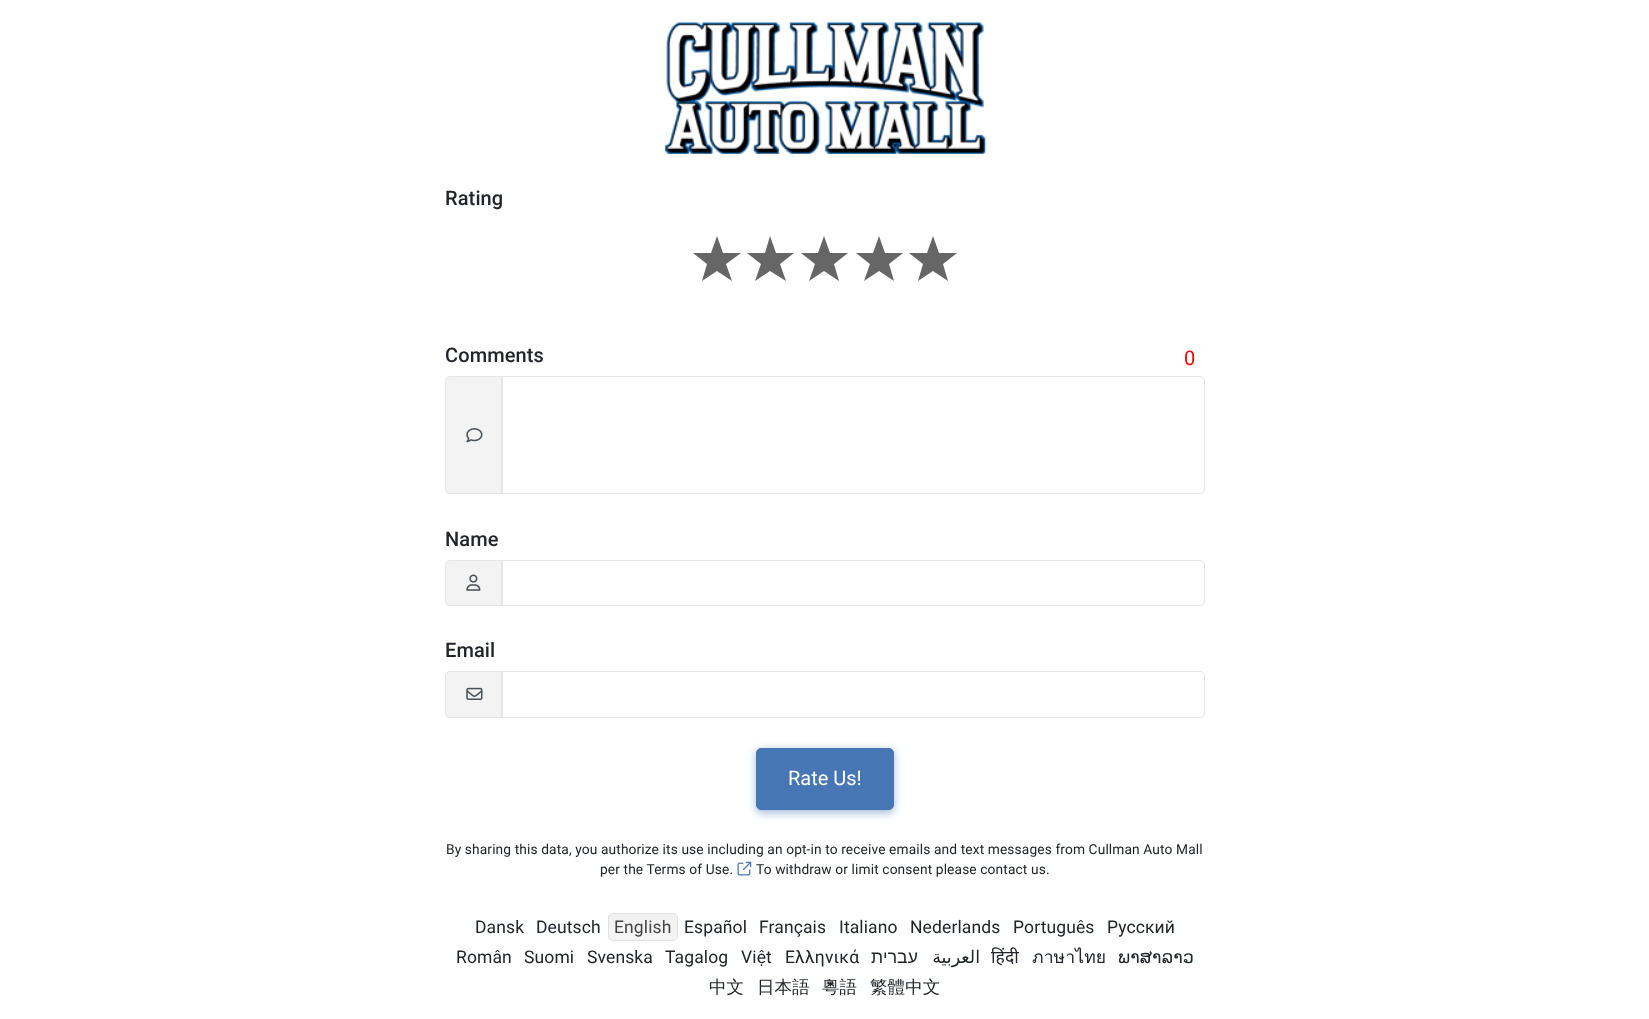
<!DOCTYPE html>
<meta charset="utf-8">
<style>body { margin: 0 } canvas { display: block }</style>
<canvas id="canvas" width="1649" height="1019"></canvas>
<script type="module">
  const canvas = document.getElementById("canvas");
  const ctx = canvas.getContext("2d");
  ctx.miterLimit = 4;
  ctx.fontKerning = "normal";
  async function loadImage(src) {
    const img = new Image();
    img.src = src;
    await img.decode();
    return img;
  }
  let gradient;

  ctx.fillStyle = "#ffffff";
  ctx.fillRect(0, 0, 1649, 1019);
  ctx.drawImage(await loadImage("img1.png"), 664, 22, 323, 132);
  ctx.letterSpacing = "0.12px";
  ctx.font = "500 20px Roboto";
  ctx.fillStyle = "#212529";
  ctx.fillText("Rating", 445, 205);
  ctx.fillStyle = "#666666";
  ctx.beginPath();
  ctx.moveTo(711, 253);
  ctx.lineTo(717, 236);
  ctx.lineTo(723, 253);
  ctx.lineTo(741, 253);
  ctx.lineTo(726, 264);
  ctx.lineTo(732, 281);
  ctx.lineTo(717, 271);
  ctx.lineTo(702, 281);
  ctx.lineTo(707, 264);
  ctx.lineTo(693, 253);
  ctx.closePath();
  ctx.fill();
  ctx.beginPath();
  ctx.moveTo(765, 253);
  ctx.lineTo(770, 236);
  ctx.lineTo(776, 253);
  ctx.lineTo(794, 253);
  ctx.lineTo(780, 264);
  ctx.lineTo(786, 281);
  ctx.lineTo(770, 271);
  ctx.lineTo(755, 281);
  ctx.lineTo(761, 264);
  ctx.lineTo(747, 253);
  ctx.closePath();
  ctx.fill();
  ctx.beginPath();
  ctx.moveTo(818, 253);
  ctx.lineTo(824, 236);
  ctx.lineTo(830, 253);
  ctx.lineTo(848, 253);
  ctx.lineTo(834, 264);
  ctx.lineTo(839, 281);
  ctx.lineTo(824, 271);
  ctx.lineTo(809, 281);
  ctx.lineTo(815, 264);
  ctx.lineTo(801, 253);
  ctx.closePath();
  ctx.fill();
  ctx.beginPath();
  ctx.moveTo(873, 253);
  ctx.lineTo(879, 236);
  ctx.lineTo(885, 253);
  ctx.lineTo(903, 253);
  ctx.lineTo(889, 264);
  ctx.lineTo(894, 281);
  ctx.lineTo(879, 271);
  ctx.lineTo(864, 281);
  ctx.lineTo(870, 264);
  ctx.lineTo(856, 253);
  ctx.closePath();
  ctx.fill();
  ctx.beginPath();
  ctx.moveTo(927, 253);
  ctx.lineTo(933, 236);
  ctx.lineTo(939, 253);
  ctx.lineTo(957, 253);
  ctx.lineTo(943, 264);
  ctx.lineTo(948, 281);
  ctx.lineTo(933, 271);
  ctx.lineTo(918, 281);
  ctx.lineTo(923, 264);
  ctx.lineTo(909, 253);
  ctx.closePath();
  ctx.fill();
  ctx.fillStyle = "#212529";
  ctx.fillText("Comments", 445, 362);
  ctx.font = "20px Roboto";
  ctx.fillStyle = "#ff0000";
  ctx.fillText("0", 1184, 365);
  ctx.fillStyle = "#f3f3f3";
  ctx.beginPath();
  ctx.roundRect(445.5, 376.5, 57, 117, [4.5, 0, 0, 4.5]);
  ctx.fill();
  ctx.strokeStyle = "#e5e5e5";
  ctx.stroke();
  ctx.drawImage(await loadImage("img2.png"), 466, 428, 17, 15);
  ctx.beginPath();
  ctx.roundRect(501.5, 376.5, 703, 117, [0, 4.5, 4.5, 0]);
  ctx.stroke();
  ctx.font = "500 20px Roboto";
  ctx.fillStyle = "#212529";
  ctx.fillText("Name", 445, 546);
  ctx.fillStyle = "#f3f3f3";
  ctx.beginPath();
  ctx.roundRect(445.5, 560.5, 57, 45, [4.5, 0, 0, 4.5]);
  ctx.fill();
  ctx.stroke();
  ctx.drawImage(await loadImage("img3.png"), 466, 574, 15, 17);
  ctx.beginPath();
  ctx.roundRect(501.5, 560.5, 703, 45, [0, 4.5, 4.5, 0]);
  ctx.stroke();
  ctx.fillStyle = "#212529";
  ctx.fillText("Email", 445, 657);
  ctx.fillStyle = "#f3f3f3";
  ctx.beginPath();
  ctx.roundRect(445.5, 671.5, 57, 46, [4.5, 0, 0, 4.5]);
  ctx.fill();
  ctx.stroke();
  ctx.drawImage(await loadImage("img4.png"), 466, 687, 17, 13);
  ctx.beginPath();
  ctx.roundRect(501.5, 671.5, 703, 46, [0, 4.5, 4.5, 0]);
  ctx.stroke();
  ctx.fillStyle = "rgba(71, 118, 181, 0.5)";
  ctx.filter = "blur(4px)";
  ctx.beginPath();
  ctx.roundRect(756, 750, 138, 63, 5);
  ctx.fill();
  ctx.filter = "none";
  ctx.fillStyle = "#4776b5";
  ctx.beginPath();
  ctx.roundRect(756.5, 748.5, 137, 61, 4.5);
  ctx.fill();
  ctx.strokeStyle = "#4776b5";
  ctx.stroke();
  ctx.letterSpacing = "0px";
  ctx.font = "20px Roboto";
  ctx.fillStyle = "#ffffff";
  ctx.fillText("Rate Us!", 788, 785);
  ctx.letterSpacing = "0.12px";
  ctx.font = "13.75px Roboto";
  ctx.fillStyle = "#212529";
  ctx.fillText("By sharing this data, you authorize its use including an opt-in to receive emails and text messages from Cullman Auto Mall", 446, 854);
  ctx.fillText("per the Terms of Use.", 600, 874);
  ctx.drawImage(await loadImage("img5.png"), 737, 861, 15, 15);
  ctx.fillText("To withdraw or limit consent please contact us.", 756, 874);
  ctx.font = "17.5px Roboto";
  ctx.fillText("Dansk", 475, 933);
  ctx.fillText("Deutsch", 536, 933);
  ctx.save();
  ctx.beginPath();
  ctx.roundRect(608, 913, 70, 28, 5);
  ctx.clip();
  gradient = ctx.createLinearGradient(643, 940, 643, 914);
  gradient.addColorStop(0, "#f5f5f5");
  gradient.addColorStop(1, "#f1f1f1");
  ctx.fillStyle = gradient;
  ctx.fillRect(608, 914, 70, 26);
  ctx.restore();
  ctx.beginPath();
  ctx.roundRect(608.5, 913.5, 69, 27, 4.5);
  ctx.strokeStyle = "#dee2e6";
  ctx.stroke();
  ctx.fillStyle = "#444444";
  ctx.fillText("English", 614, 933);
  ctx.fillStyle = "#212529";
  ctx.fillText("Español", 684, 933);
  ctx.fillText("Français", 759, 933);
  ctx.fillText("Italiano", 839, 933);
  ctx.fillText("Nederlands", 910, 933);
  ctx.fillText("Português", 1013, 933);
  ctx.fillText("Pусский", 1107, 933);
  ctx.fillText("Român", 456, 963);
  ctx.fillText("Suomi", 524, 963);
  ctx.fillText("Svenska", 587, 963);
  ctx.fillText("Tagalog", 665, 963);
  ctx.fillText("Việt", 741, 963);
  ctx.fillText("Ελληνικά", 785, 963);
  ctx.direction = "rtl";
  ctx.font = "17.5px Liberation Sans";
  ctx.fillText("עברית", 918, 963);
  ctx.font = "17.5px DejaVu Sans";
  ctx.fillText("العربية", 980, 963);
  ctx.direction = "ltr";
  ctx.font = "17.5px Noto Sans";
  ctx.fillText("हिंदी", 991, 963);
  ctx.font = "17.5px Loma";
  ctx.fillText("ภาษาไทย", 1032, 963);
  ctx.font = "17.5px DejaVu Sans";
  ctx.fillText("ພາສາລາວ", 1118, 963);
  ctx.font = "500 17.5px WenQuanYi Zen Hei";
  ctx.fillText("中文", 709, 993);
  ctx.fillText("日本語", 757, 993);
  ctx.fillText("粵語", 822, 993);
  ctx.fillText("繁體中文", 870, 993);
</script>
